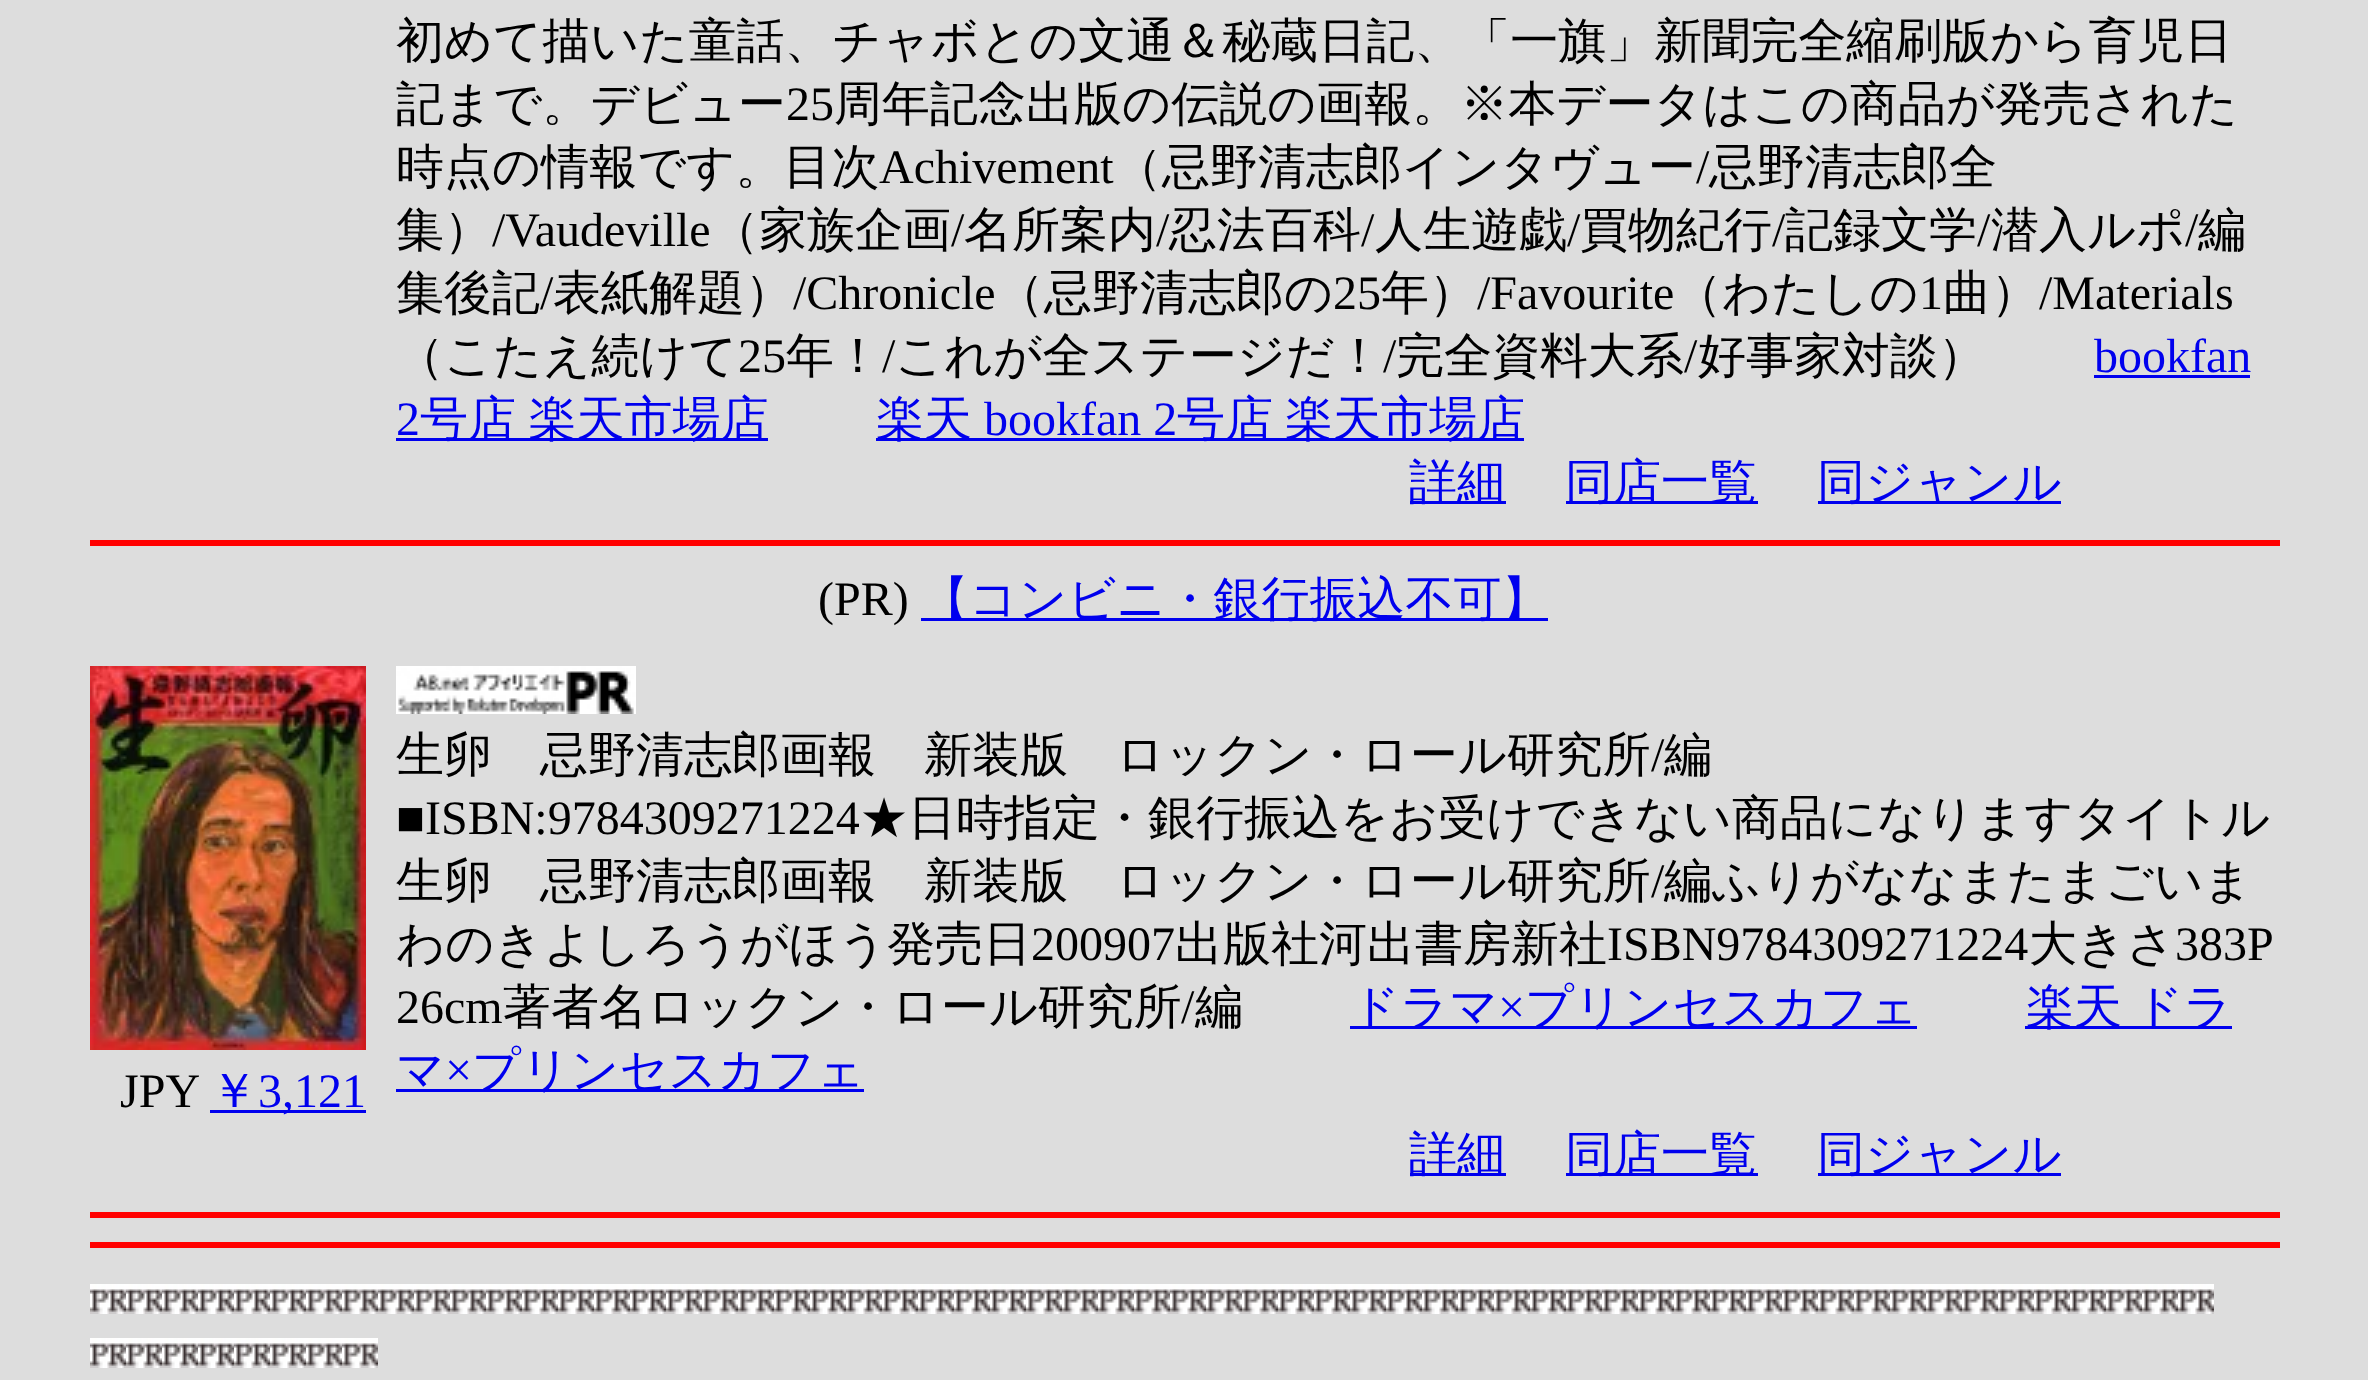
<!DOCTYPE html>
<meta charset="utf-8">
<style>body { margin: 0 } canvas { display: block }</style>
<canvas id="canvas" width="2368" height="1380"></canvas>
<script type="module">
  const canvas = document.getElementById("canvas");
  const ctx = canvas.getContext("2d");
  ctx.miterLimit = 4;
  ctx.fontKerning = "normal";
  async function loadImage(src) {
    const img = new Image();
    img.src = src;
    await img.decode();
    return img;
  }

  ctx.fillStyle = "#dddddd";
  ctx.fillRect(0, 0, 2368, 1380);
  ctx.font = "500 48px WenQuanYi Zen Hei";
  ctx.fillStyle = "#000000";
  ctx.fillText("初めて描いた童話、チャボとの文通＆秘蔵日記、「一旗」新聞完全縮刷版から育児日", 396, 57);
  ctx.fillText("記まで。デビュー", 396, 120);
  ctx.font = "48px Liberation Serif";
  ctx.fillText("25", 786, 120);
  ctx.font = "500 48px WenQuanYi Zen Hei";
  ctx.fillText("周年記念出版の伝説の画報。※本データはこの商品が発売された", 834, 120);
  ctx.fillText("時点の情報です。目次", 396, 183);
  ctx.font = "48px Liberation Serif";
  ctx.fillText("Achivement", 879, 183);
  ctx.font = "500 48px WenQuanYi Zen Hei";
  ctx.fillText("（忌野清志郎インタヴュー", 1114, 183);
  ctx.font = "48px Liberation Serif";
  ctx.fillText("/", 1696, 183);
  ctx.font = "500 48px WenQuanYi Zen Hei";
  ctx.fillText("忌野清志郎全", 1709, 183);
  ctx.fillText("集）", 396, 246);
  ctx.font = "48px Liberation Serif";
  ctx.fillText("/Vaudeville", 492, 246);
  ctx.font = "500 48px WenQuanYi Zen Hei";
  ctx.fillText("（家族企画", 711, 246);
  ctx.font = "48px Liberation Serif";
  ctx.fillText("/", 951, 246);
  ctx.font = "500 48px WenQuanYi Zen Hei";
  ctx.fillText("名所案内", 964, 246);
  ctx.font = "48px Liberation Serif";
  ctx.fillText("/", 1156, 246);
  ctx.font = "500 48px WenQuanYi Zen Hei";
  ctx.fillText("忍法百科", 1169, 246);
  ctx.font = "48px Liberation Serif";
  ctx.fillText("/", 1361, 246);
  ctx.font = "500 48px WenQuanYi Zen Hei";
  ctx.fillText("人生遊戯", 1375, 246);
  ctx.font = "48px Liberation Serif";
  ctx.fillText("/", 1567, 246);
  ctx.font = "500 48px WenQuanYi Zen Hei";
  ctx.fillText("買物紀行", 1580, 246);
  ctx.font = "48px Liberation Serif";
  ctx.fillText("/", 1772, 246);
  ctx.font = "500 48px WenQuanYi Zen Hei";
  ctx.fillText("記録文学", 1785, 246);
  ctx.font = "48px Liberation Serif";
  ctx.fillText("/", 1977, 246);
  ctx.font = "500 48px WenQuanYi Zen Hei";
  ctx.fillText("潜入ルポ", 1991, 246);
  ctx.font = "48px Liberation Serif";
  ctx.fillText("/", 2185, 246);
  ctx.font = "500 48px WenQuanYi Zen Hei";
  ctx.fillText("編", 2198, 246);
  ctx.fillText("集後記", 396, 309);
  ctx.font = "48px Liberation Serif";
  ctx.fillText("/", 540, 309);
  ctx.font = "500 48px WenQuanYi Zen Hei";
  ctx.fillText("表紙解題）", 553, 309);
  ctx.font = "48px Liberation Serif";
  ctx.fillText("/Chronicle", 793, 309);
  ctx.font = "500 48px WenQuanYi Zen Hei";
  ctx.fillText("（忌野清志郎の", 996, 309);
  ctx.font = "48px Liberation Serif";
  ctx.fillText("25", 1333, 309);
  ctx.font = "500 48px WenQuanYi Zen Hei";
  ctx.fillText("年）", 1381, 309);
  ctx.font = "48px Liberation Serif";
  ctx.fillText("/Favourite", 1477, 309);
  ctx.font = "500 48px WenQuanYi Zen Hei";
  ctx.fillText("（わたしの", 1674, 309);
  ctx.font = "48px Liberation Serif";
  ctx.fillText("1", 1919, 309);
  ctx.font = "500 48px WenQuanYi Zen Hei";
  ctx.fillText("曲）", 1943, 309);
  ctx.font = "48px Liberation Serif";
  ctx.fillText("/Materials", 2039, 309);
  ctx.font = "500 48px WenQuanYi Zen Hei";
  ctx.fillText("（こたえ続けて", 396, 372);
  ctx.font = "48px Liberation Serif";
  ctx.fillText("25", 738, 372);
  ctx.font = "500 48px WenQuanYi Zen Hei";
  ctx.fillText("年！", 786, 372);
  ctx.font = "48px Liberation Serif";
  ctx.fillText("/", 882, 372);
  ctx.font = "500 48px WenQuanYi Zen Hei";
  ctx.fillText("これが全ステージだ！", 895, 372);
  ctx.font = "48px Liberation Serif";
  ctx.fillText("/", 1383, 372);
  ctx.font = "500 48px WenQuanYi Zen Hei";
  ctx.fillText("完全資料大系", 1396, 372);
  ctx.font = "48px Liberation Serif";
  ctx.fillText("/", 1684, 372);
  ctx.font = "500 48px WenQuanYi Zen Hei";
  ctx.fillText("好事家対談）", 1698, 372);
  ctx.font = "48px Liberation Serif";
  ctx.fillStyle = "#0000ee";
  ctx.fillText("bookfan", 2094, 372);
  ctx.fillRect(2094, 375, 156, 3);
  ctx.fillText("2", 396, 435);
  ctx.fillRect(396, 438, 372, 3);
  ctx.wordSpacing = "-2px";
  ctx.font = "500 48px WenQuanYi Zen Hei";
  ctx.fillText("号店 楽天市場店", 420, 435);
  ctx.fillRect(876, 438, 648, 3);
  ctx.wordSpacing = "0px";
  ctx.fillText("楽天", 876, 435);
  ctx.font = "48px Liberation Serif";
  ctx.fillText("bookfan 2", 984, 435);
  ctx.font = "500 48px WenQuanYi Zen Hei";
  ctx.fillText("号店", 1177, 435);
  ctx.fillText("楽天市場店", 1285, 435);
  ctx.fillRect(1410, 501, 96, 3);
  ctx.fillText("詳細", 1409, 498);
  ctx.fillRect(1566, 501, 192, 3);
  ctx.fillText("同店一覧", 1565, 498);
  ctx.fillRect(1818, 501, 243, 3);
  ctx.fillText("同ジャンル", 1817, 498);
  ctx.fillStyle = "#ff0000";
  ctx.fillRect(90, 540, 2190, 6);
  ctx.font = "48px Liberation Serif";
  ctx.fillStyle = "#000000";
  ctx.fillText("(PR)", 818, 615);
  ctx.fillStyle = "#0000ee";
  ctx.fillRect(921, 618, 627, 3);
  ctx.font = "500 48px WenQuanYi Zen Hei";
  ctx.fillText("【コンビニ・銀行振込不可】", 921, 615);
  ctx.drawImage(await loadImage("img1.png"), 90, 666, 276, 384);
  ctx.font = "48px Liberation Serif";
  ctx.fillStyle = "#000000";
  ctx.fillText("JPY", 120, 1107);
  ctx.font = "500 48px WenQuanYi Zen Hei";
  ctx.fillStyle = "#0000ee";
  ctx.fillText("￥", 210, 1107);
  ctx.fillRect(210, 1110, 156, 3);
  ctx.font = "48px Liberation Serif";
  ctx.fillText("3,121", 258, 1107);
  ctx.drawImage(await loadImage("img2.png"), 396, 666, 240, 48);
  ctx.font = "500 48px WenQuanYi Zen Hei";
  ctx.fillStyle = "#000000";
  ctx.fillText("生卵　忌野清志郎画報　新装版　ロックン・ロール研究所", 396, 771);
  ctx.font = "48px Liberation Serif";
  ctx.fillText("/", 1651, 771);
  ctx.font = "500 48px WenQuanYi Zen Hei";
  ctx.fillText("編", 1664, 771);
  ctx.font = "48px Liberation Serif";
  ctx.fillText("■ISBN:9784309271224", 396, 834);
  ctx.font = "500 48px WenQuanYi Zen Hei";
  ctx.fillText("★日時指定・銀行振込をお受けできない商品になりますタイトル", 860, 834);
  ctx.fillText("生卵　忌野清志郎画報　新装版　ロックン・ロール研究所", 396, 897);
  ctx.font = "48px Liberation Serif";
  ctx.fillText("/", 1651, 897);
  ctx.font = "500 48px WenQuanYi Zen Hei";
  ctx.fillText("編ふりがななまたまごいま", 1664, 897);
  ctx.fillText("わのきよしろうがほう発売日", 396, 960);
  ctx.font = "48px Liberation Serif";
  ctx.fillText("200907", 1031, 960);
  ctx.font = "500 48px WenQuanYi Zen Hei";
  ctx.fillText("出版社河出書房新社", 1175, 960);
  ctx.font = "48px Liberation Serif";
  ctx.fillText("ISBN9784309271224", 1607, 960);
  ctx.font = "500 48px WenQuanYi Zen Hei";
  ctx.fillText("大きさ", 2029, 960);
  ctx.font = "48px Liberation Serif";
  ctx.fillText("383P", 2175, 960);
  ctx.fillText("26cm", 396, 1023);
  ctx.font = "500 48px WenQuanYi Zen Hei";
  ctx.fillText("著者名ロックン・ロール研究所", 503, 1023);
  ctx.font = "48px Liberation Serif";
  ctx.fillText("/", 1181, 1023);
  ctx.font = "500 48px WenQuanYi Zen Hei";
  ctx.fillText("編", 1195, 1023);
  ctx.fillStyle = "#0000ee";
  ctx.fillRect(1350, 1026, 567, 3);
  ctx.fillText("ドラマ", 1351, 1023);
  ctx.font = "48px Liberation Serif";
  ctx.fillText("×", 1498, 1023);
  ctx.font = "500 48px WenQuanYi Zen Hei";
  ctx.fillText("プリンセスカフェ", 1525, 1023);
  ctx.fillRect(2025, 1026, 207, 3);
  ctx.wordSpacing = "-2px";
  ctx.fillText("楽天 ドラ", 2026, 1023);
  ctx.wordSpacing = "0px";
  ctx.fillText("マ", 396, 1086);
  ctx.fillRect(396, 1089, 468, 3);
  ctx.font = "48px Liberation Serif";
  ctx.fillText("×", 445, 1086);
  ctx.font = "500 48px WenQuanYi Zen Hei";
  ctx.fillText("プリンセスカフェ", 472, 1086);
  ctx.fillRect(1410, 1173, 96, 3);
  ctx.fillText("詳細", 1409, 1170);
  ctx.fillRect(1566, 1173, 192, 3);
  ctx.fillText("同店一覧", 1565, 1170);
  ctx.fillRect(1818, 1173, 243, 3);
  ctx.fillText("同ジャンル", 1817, 1170);
  ctx.fillStyle = "#ff0000";
  ctx.fillRect(90, 1212, 2190, 6);
  ctx.fillRect(90, 1242, 2190, 6);
  ctx.drawImage(await loadImage("img3.png"), 90, 1284, 36, 30);
  ctx.drawImage(await loadImage("img3.png"), 126, 1284, 36, 30);
  ctx.drawImage(await loadImage("img3.png"), 162, 1284, 36, 30);
  ctx.drawImage(await loadImage("img3.png"), 198, 1284, 36, 30);
  ctx.drawImage(await loadImage("img3.png"), 234, 1284, 36, 30);
  ctx.drawImage(await loadImage("img4.png"), 270, 1284, 36, 30);
  ctx.drawImage(await loadImage("img5.png"), 306, 1284, 36, 30);
  ctx.drawImage(await loadImage("img5.png"), 342, 1284, 36, 30);
  ctx.drawImage(await loadImage("img5.png"), 378, 1284, 36, 30);
  ctx.drawImage(await loadImage("img5.png"), 414, 1284, 36, 30);
  ctx.drawImage(await loadImage("img5.png"), 450, 1284, 36, 30);
  ctx.drawImage(await loadImage("img6.png"), 486, 1284, 36, 30);
  ctx.drawImage(await loadImage("img4.png"), 522, 1284, 36, 30);
  ctx.drawImage(await loadImage("img5.png"), 558, 1284, 36, 30);
  ctx.drawImage(await loadImage("img5.png"), 594, 1284, 36, 30);
  ctx.drawImage(await loadImage("img3.png"), 630, 1284, 36, 30);
  ctx.drawImage(await loadImage("img3.png"), 666, 1284, 36, 30);
  ctx.drawImage(await loadImage("img5.png"), 702, 1284, 36, 30);
  ctx.drawImage(await loadImage("img6.png"), 738, 1284, 36, 30);
  ctx.drawImage(await loadImage("img3.png"), 774, 1284, 36, 30);
  ctx.drawImage(await loadImage("img3.png"), 810, 1284, 36, 30);
  ctx.drawImage(await loadImage("img3.png"), 846, 1284, 36, 30);
  ctx.drawImage(await loadImage("img3.png"), 882, 1284, 36, 30);
  ctx.drawImage(await loadImage("img3.png"), 918, 1284, 36, 30);
  ctx.drawImage(await loadImage("img3.png"), 954, 1284, 36, 30);
  ctx.drawImage(await loadImage("img3.png"), 990, 1284, 36, 30);
  ctx.drawImage(await loadImage("img4.png"), 1026, 1284, 36, 30);
  ctx.drawImage(await loadImage("img5.png"), 1062, 1284, 36, 30);
  ctx.drawImage(await loadImage("img5.png"), 1098, 1284, 36, 30);
  ctx.drawImage(await loadImage("img5.png"), 1134, 1284, 36, 30);
  ctx.drawImage(await loadImage("img5.png"), 1170, 1284, 36, 30);
  ctx.drawImage(await loadImage("img5.png"), 1206, 1284, 36, 30);
  ctx.drawImage(await loadImage("img7.png"), 1242, 1284, 36, 30);
  ctx.drawImage(await loadImage("img3.png"), 1278, 1284, 36, 30);
  ctx.drawImage(await loadImage("img3.png"), 1314, 1284, 36, 30);
  ctx.drawImage(await loadImage("img5.png"), 1350, 1284, 36, 30);
  ctx.drawImage(await loadImage("img3.png"), 1386, 1284, 36, 30);
  ctx.drawImage(await loadImage("img3.png"), 1422, 1284, 36, 30);
  ctx.drawImage(await loadImage("img3.png"), 1458, 1284, 36, 30);
  ctx.drawImage(await loadImage("img7.png"), 1494, 1284, 36, 30);
  ctx.drawImage(await loadImage("img3.png"), 1530, 1284, 36, 30);
  ctx.drawImage(await loadImage("img3.png"), 1566, 1284, 36, 30);
  ctx.drawImage(await loadImage("img3.png"), 1602, 1284, 36, 30);
  ctx.drawImage(await loadImage("img3.png"), 1638, 1284, 36, 30);
  ctx.drawImage(await loadImage("img3.png"), 1674, 1284, 36, 30);
  ctx.drawImage(await loadImage("img3.png"), 1710, 1284, 36, 30);
  ctx.drawImage(await loadImage("img3.png"), 1746, 1284, 36, 30);
  ctx.drawImage(await loadImage("img3.png"), 1782, 1284, 36, 30);
  ctx.drawImage(await loadImage("img5.png"), 1818, 1284, 36, 30);
  ctx.drawImage(await loadImage("img5.png"), 1854, 1284, 36, 30);
  ctx.drawImage(await loadImage("img5.png"), 1890, 1284, 36, 30);
  ctx.drawImage(await loadImage("img5.png"), 1926, 1284, 36, 30);
  ctx.drawImage(await loadImage("img5.png"), 1962, 1284, 36, 30);
  ctx.drawImage(await loadImage("img5.png"), 1998, 1284, 36, 30);
  ctx.drawImage(await loadImage("img3.png"), 2034, 1284, 36, 30);
  ctx.drawImage(await loadImage("img3.png"), 2070, 1284, 36, 30);
  ctx.drawImage(await loadImage("img5.png"), 2106, 1284, 36, 30);
  ctx.drawImage(await loadImage("img3.png"), 2142, 1284, 36, 30);
  ctx.drawImage(await loadImage("img3.png"), 2178, 1284, 36, 30);
  ctx.drawImage(await loadImage("img3.png"), 90, 1338, 36, 30);
  ctx.drawImage(await loadImage("img3.png"), 126, 1338, 36, 30);
  ctx.drawImage(await loadImage("img3.png"), 162, 1338, 36, 30);
  ctx.drawImage(await loadImage("img3.png"), 198, 1338, 36, 30);
  ctx.drawImage(await loadImage("img3.png"), 234, 1338, 36, 30);
  ctx.drawImage(await loadImage("img4.png"), 270, 1338, 36, 30);
  ctx.drawImage(await loadImage("img5.png"), 306, 1338, 36, 30);
  ctx.drawImage(await loadImage("img5.png"), 342, 1338, 36, 30);
</script>
